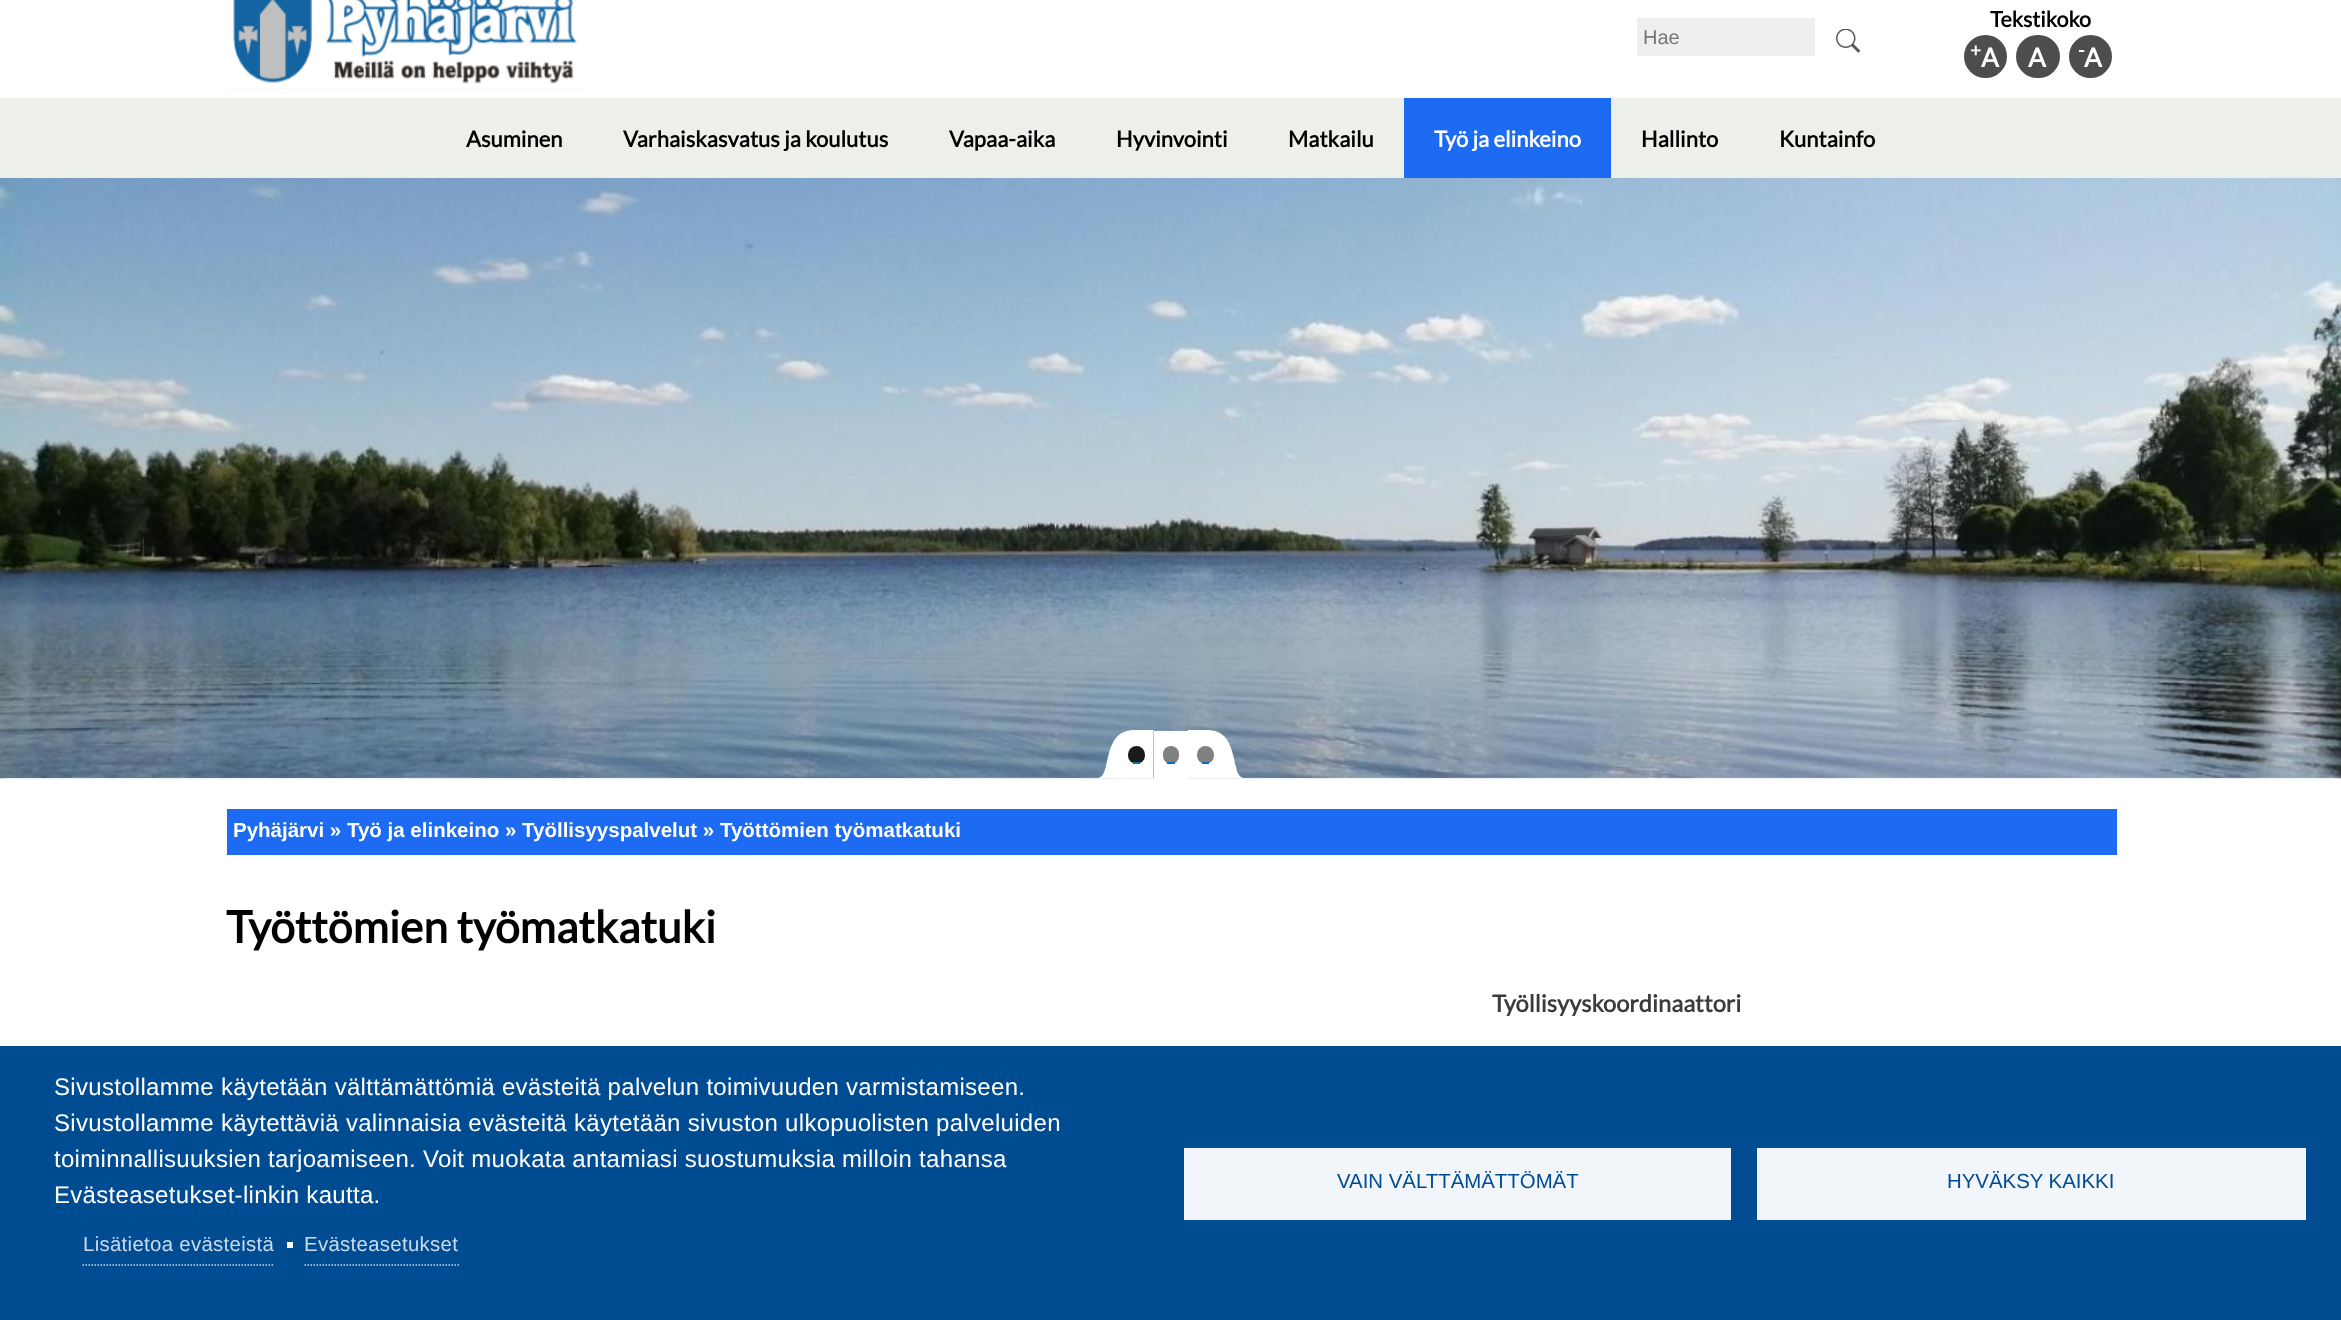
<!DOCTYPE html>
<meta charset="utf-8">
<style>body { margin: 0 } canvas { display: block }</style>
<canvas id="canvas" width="2341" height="1320"></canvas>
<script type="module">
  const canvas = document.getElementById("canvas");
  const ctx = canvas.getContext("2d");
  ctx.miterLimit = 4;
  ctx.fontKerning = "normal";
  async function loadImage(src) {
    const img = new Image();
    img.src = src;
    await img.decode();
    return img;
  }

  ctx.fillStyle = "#ffffff";
  ctx.fillRect(0, 0, 2341, 1320);
  ctx.drawImage(await loadImage("img1.png"), 227, 0, 359, 90);
  ctx.fillStyle = "#efefef";
  ctx.fillRect(1637, 18, 178, 38);
  ctx.font = "20px Liberation Sans";
  ctx.fillStyle = "#757575";
  ctx.fillText("Hae", 1643, 44);
  ctx.drawImage(await loadImage("img2.png"), 1836, 29, 24, 24);
  ctx.font = "bold 21.5px Lato";
  ctx.fillStyle = "#000000";
  ctx.fillText("Tekstikoko", 1990, 27);
  ctx.fillStyle = "#4d4d4d";
  ctx.beginPath();
  ctx.arc(1985.5, 56.5, 20, 0, Math.PI * 2);
  ctx.fill();
  ctx.strokeStyle = "#4d4d4d";
  ctx.lineWidth = 3;
  ctx.stroke();
  ctx.font = "bold 19px Lato";
  ctx.fillStyle = "#ffffff";
  ctx.fillText("+", 1970, 57);
  ctx.font = "bold 26px Lato";
  ctx.fillText("A", 1981, 67);
  ctx.fillStyle = "#4d4d4d";
  ctx.beginPath();
  ctx.roundRect(2017.5, 36.5, 41, 40, 20);
  ctx.fill();
  ctx.stroke();
  ctx.fillStyle = "#ffffff";
  ctx.fillText("A", 2028, 67);
  ctx.fillStyle = "#4d4d4d";
  ctx.beginPath();
  ctx.arc(2090.5, 56.5, 20, 0, Math.PI * 2);
  ctx.fill();
  ctx.stroke();
  ctx.font = "bold 19px Lato";
  ctx.fillStyle = "#ffffff";
  ctx.fillText("-", 2078, 57);
  ctx.font = "bold 26px Lato";
  ctx.fillText("A", 2084, 67);
  ctx.fillStyle = "#edefeb";
  ctx.fillRect(0, 98, 2341, 80);
  ctx.font = "bold 22px Lato";
  ctx.fillStyle = "#000000";
  ctx.fillText("Asuminen", 466, 147);
  ctx.fillText("Varhaiskasvatus ja koulutus", 623, 147);
  ctx.fillText("Vapaa-aika", 949, 147);
  ctx.fillText("Hyvinvointi", 1116, 147);
  ctx.fillText("Matkailu", 1288, 147);
  ctx.fillStyle = "#1c6bf2";
  ctx.fillRect(1404, 98, 207, 80);
  ctx.fillStyle = "#ffffff";
  ctx.fillText("Työ ja elinkeino", 1434, 147);
  ctx.fillStyle = "#000000";
  ctx.fillText("Hallinto", 1641, 147);
  ctx.fillText("Kuntainfo", 1779, 147);
  ctx.fillStyle = "#dddddd";
  ctx.fillRect(0, 777, 2341, 2);
  ctx.fillStyle = "#ffffff";
  ctx.beginPath();
  ctx.roundRect(0, 179, 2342, 600, 6);
  ctx.fill();
  ctx.drawImage(await loadImage("img3.png"), 0, 178, 2341, 601);
  ctx.drawImage(await loadImage("img4.png"), 1098, 730, 56, 48);
  ctx.fillStyle = "#1a1a1a";
  ctx.beginPath();
  ctx.roundRect(1128, 746, 17, 18, 8.5);
  ctx.fill();
  ctx.fillStyle = "#0071b3";
  ctx.fillRect(1133, 762, 7, 2);
  ctx.fillStyle = "#ffffff";
  ctx.fillRect(1154, 731, 34, 48);
  ctx.fillStyle = "#808080";
  ctx.beginPath();
  ctx.roundRect(1163, 746, 16, 18, 8);
  ctx.fill();
  ctx.fillStyle = "#0071b3";
  ctx.fillRect(1167, 762, 8, 2);
  ctx.drawImage(await loadImage("img5.png"), 1188, 730, 56, 48);
  ctx.fillStyle = "#808080";
  ctx.beginPath();
  ctx.roundRect(1197, 746, 17, 18, 8.5);
  ctx.fill();
  ctx.fillStyle = "#0071b3";
  ctx.fillRect(1202, 762, 7, 2);
  ctx.fillStyle = "#1c6bf2";
  ctx.fillRect(227, 809, 1890, 46);
  ctx.font = "bold 20.5px Liberation Sans";
  ctx.fillStyle = "#ffffff";
  ctx.fillText("Pyhäjärvi » Työ ja elinkeino » Työllisyyspalvelut » Työttömien työmatkatuki", 233, 837);
  ctx.font = "bold 44.25px Lato";
  ctx.fillStyle = "#000000";
  ctx.fillText("Työttömien työmatkatuki", 226, 943);
  ctx.font = "bold 23.6px Lato";
  ctx.fillStyle = "#3b3b3b";
  ctx.fillText("Työllisyyskoordinaattori", 1492, 1012);
  ctx.fillStyle = "#004c93";
  ctx.fillRect(0, 1046, 2341, 274);
  ctx.letterSpacing = "0.3px";
  ctx.font = "24px Liberation Sans";
  ctx.fillStyle = "#ffffff";
  ctx.fillText("Sivustollamme käytetään välttämättömiä evästeitä palvelun toimivuuden varmistamiseen.", 54, 1095);
  ctx.fillText("Sivustollamme käytettäviä valinnaisia evästeitä käytetään sivuston ulkopuolisten palveluiden", 54, 1131);
  ctx.fillText("toiminnallisuuksien tarjoamiseen. Voit muokata antamiasi suostumuksia milloin tahansa", 54, 1167);
  ctx.fillText("Evästeasetukset-linkin kautta.", 54, 1203);
  ctx.beginPath();
  ctx.moveTo(82.5, 1265);
  ctx.lineTo(273, 1265);
  ctx.strokeStyle = "#ccdbe9";
  ctx.lineWidth = 1.5;
  ctx.setLineDash([1.5, 1.5]);
  ctx.stroke();
  ctx.font = "20.4px Liberation Sans";
  ctx.fillStyle = "#ccdbe9";
  ctx.fillText("Lisätietoa evästeistä", 83, 1251);
  ctx.fillStyle = "#ffffff";
  ctx.fillRect(287, 1242, 6, 6);
  ctx.beginPath();
  ctx.moveTo(304.5, 1265);
  ctx.lineTo(459, 1265);
  ctx.stroke();
  ctx.fillStyle = "#ccdbe9";
  ctx.fillText("Evästeasetukset", 304, 1251);
  ctx.fillStyle = "#f2f6fa";
  ctx.fillRect(1184, 1148, 547, 72);
  ctx.letterSpacing = "0px";
  ctx.fillStyle = "#004c93";
  ctx.fillText("VAIN VÄLTTÄMÄTTÖMÄT", 1337, 1188);
  ctx.fillStyle = "#f2f6fa";
  ctx.fillRect(1757, 1148, 549, 72);
  ctx.fillStyle = "#004c93";
  ctx.fillText("HYVÄKSY KAIKKI", 1947, 1188);
</script>
